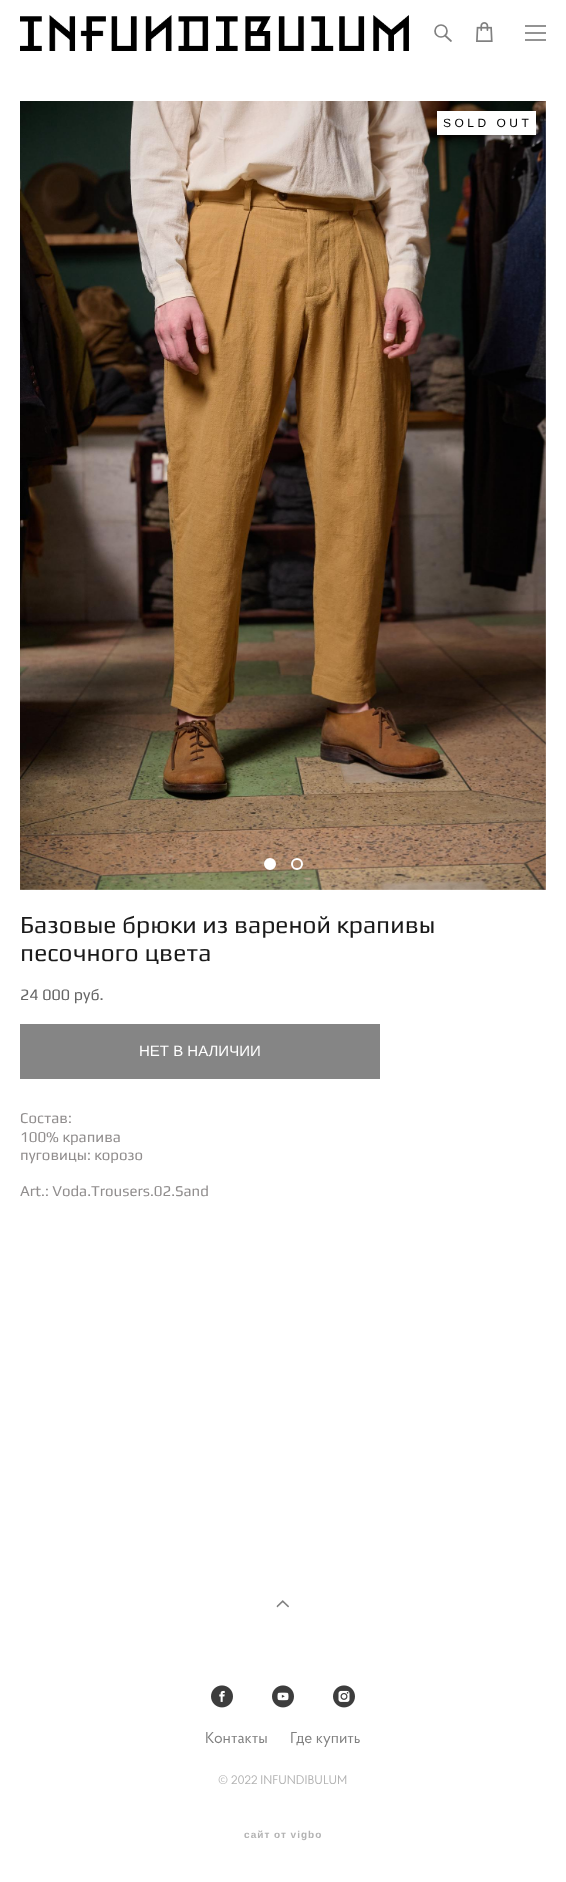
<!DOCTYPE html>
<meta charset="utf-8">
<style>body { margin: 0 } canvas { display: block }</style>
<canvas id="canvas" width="566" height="1882"></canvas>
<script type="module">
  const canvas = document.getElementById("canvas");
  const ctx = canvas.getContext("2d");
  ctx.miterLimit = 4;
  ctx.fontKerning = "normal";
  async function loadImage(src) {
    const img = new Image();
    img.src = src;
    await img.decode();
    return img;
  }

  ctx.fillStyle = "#ffffff";
  ctx.fillRect(0, 0, 566, 1882);
  ctx.drawImage(await loadImage("img1.png"), 20, 15, 389, 36);
  ctx.beginPath();
  ctx.arc(441, 31, 6, 0, Math.PI * 2);
  ctx.strokeStyle = "#808080";
  ctx.lineWidth = 1.7;
  ctx.stroke();
  ctx.beginPath();
  ctx.moveTo(445, 35.5);
  ctx.lineTo(451, 41);
  ctx.lineCap = "round";
  ctx.lineJoin = "round";
  ctx.stroke();
  ctx.drawImage(await loadImage("img2.png"), 476, 22, 17, 20);
  ctx.fillStyle = "#939393";
  ctx.fillRect(525, 25, 21, 2);
  ctx.fillRect(525, 32, 21, 2);
  ctx.fillRect(525, 39, 21, 2);
  ctx.drawImage(await loadImage("img3.png"), 20, 101, 526, 789);
  ctx.fillStyle = "#ffffff";
  ctx.beginPath();
  ctx.arc(270, 864, 5, 0, Math.PI * 2);
  ctx.fill();
  ctx.strokeStyle = "#ffffff";
  ctx.lineWidth = 2;
  ctx.stroke();
  ctx.beginPath();
  ctx.arc(297, 864, 5, 0, Math.PI * 2);
  ctx.stroke();
  ctx.fillRect(437, 111, 99, 24);
  ctx.letterSpacing = "3.5px";
  ctx.font = "12px Liberation Sans";
  ctx.fillStyle = "#000000";
  ctx.fillText("SOLD OUT", 443, 127);
  ctx.letterSpacing = "0px";
  ctx.font = "24.5px Play";
  ctx.fillStyle = "#1a1a1a";
  ctx.fillText("Базовые брюки из вареной крапивы", 20, 933);
  ctx.fillText("песочного цвета", 20, 961);
  ctx.font = "16px Play";
  ctx.fillStyle = "#666666";
  ctx.fillText("24 000 pуб.", 20, 1000);
  ctx.fillStyle = "#858585";
  ctx.fillRect(20, 1024, 360, 55);
  ctx.font = "15px Liberation Sans";
  ctx.fillStyle = "#ffffff";
  ctx.fillText("НЕТ В НАЛИЧИИ", 139, 1056);
  ctx.font = "15px Play";
  ctx.fillStyle = "#918e8e";
  ctx.fillText("Состав:", 20, 1123);
  ctx.fillText("100% крапива", 20, 1142);
  ctx.fillText("пуговицы: корозо", 20, 1160);
  ctx.fillText("Art.: Voda.Trousers.02.Sand", 20, 1196);
  ctx.drawImage(await loadImage("img4.png"), 276, 1600, 13, 8);
  ctx.drawImage(await loadImage("img5.png"), 211, 1685, 22, 23);
  ctx.drawImage(await loadImage("img6.png"), 272, 1685, 22, 23);
  ctx.drawImage(await loadImage("img7.png"), 333, 1685, 22, 23);
  ctx.font = "15.75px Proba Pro";
  ctx.fillStyle = "#808080";
  ctx.fillText("Контакты", 205, 1743);
  ctx.fillText("Где купить", 290, 1743);
  ctx.font = "12.5px Proba Pro";
  ctx.fillStyle = "#b3b3b3";
  ctx.fillText("© 2022 INFUNDIBULUM", 218, 1784);
  ctx.letterSpacing = "1px";
  ctx.font = "bold 10px Liberation Sans";
  ctx.fillText("сайт от vigbo", 244, 1838);
</script>
